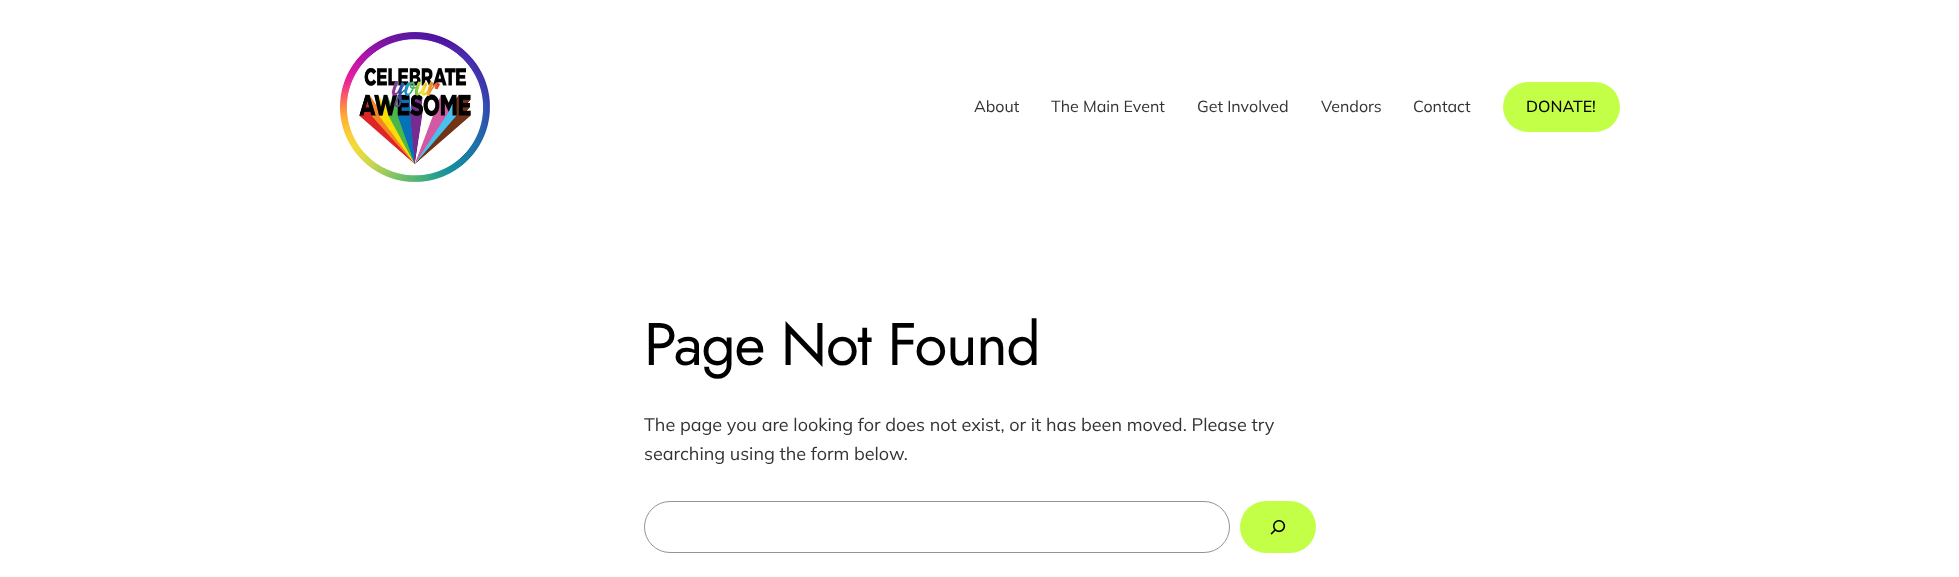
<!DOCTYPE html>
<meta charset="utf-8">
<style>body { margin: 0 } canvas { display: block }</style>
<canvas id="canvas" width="1959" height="577"></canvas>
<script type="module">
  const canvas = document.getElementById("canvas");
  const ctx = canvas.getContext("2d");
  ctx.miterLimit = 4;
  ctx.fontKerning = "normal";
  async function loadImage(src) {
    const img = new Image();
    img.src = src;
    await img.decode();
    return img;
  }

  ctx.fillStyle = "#ffffff";
  ctx.fillRect(0, 0, 1959, 577);
  ctx.drawImage(await loadImage("img1.png"), 340, 32, 150, 150);
  ctx.font = "16px Mulish";
  ctx.fillStyle = "#333333";
  ctx.fillText("About", 974, 112);
  ctx.fillText("The Main Event", 1051, 112);
  ctx.fillText("Get Involved", 1197, 112);
  ctx.fillText("Vendors", 1321, 112);
  ctx.fillText("Contact", 1413, 112);
  ctx.fillStyle = "#c4ff47";
  ctx.beginPath();
  ctx.roundRect(1503, 82, 117, 50, 25);
  ctx.fill();
  ctx.font = "500 16px Mulish";
  ctx.fillStyle = "#000000";
  ctx.fillText("DONATE!", 1526, 112);
  ctx.letterSpacing = "-1.25px";
  ctx.font = "60px Jost";
  ctx.fillText("Page Not Found", 644, 365);
  ctx.letterSpacing = "0px";
  ctx.font = "18px Mulish";
  ctx.fillStyle = "#333333";
  ctx.fillText("The page you are looking for does not exist, or it has been moved. Please try", 644, 431);
  ctx.fillText("searching using the form below.", 644, 460);
  ctx.beginPath();
  ctx.roundRect(644.5, 501.5, 585, 51, 25.5);
  ctx.strokeStyle = "#949494";
  ctx.stroke();
  ctx.fillStyle = "#c4ff47";
  ctx.beginPath();
  ctx.roundRect(1240, 501, 76, 52, 26);
  ctx.fill();
  ctx.drawImage(await loadImage("img2.png"), 1270, 520, 16, 15);
</script>
